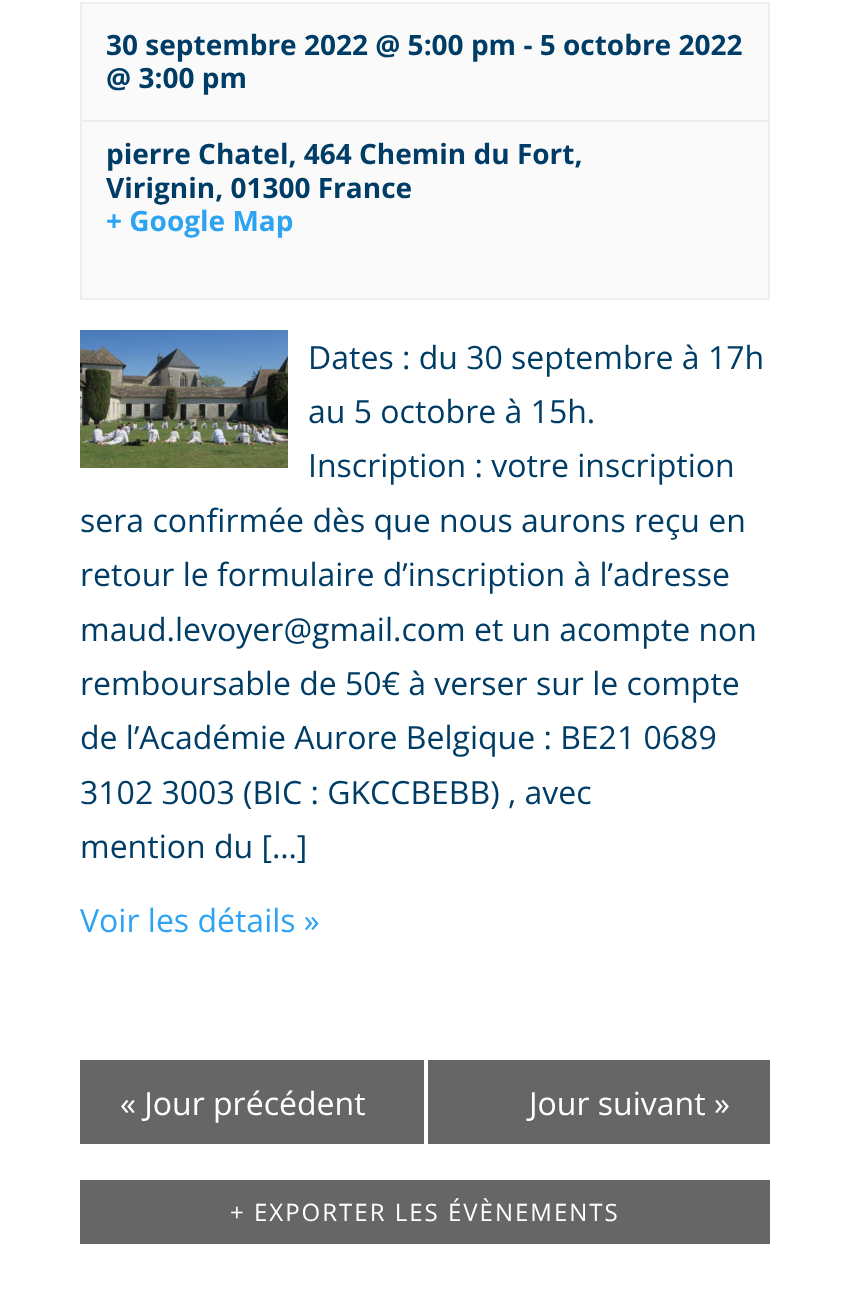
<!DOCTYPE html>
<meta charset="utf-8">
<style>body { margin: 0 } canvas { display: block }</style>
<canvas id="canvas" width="850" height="1303"></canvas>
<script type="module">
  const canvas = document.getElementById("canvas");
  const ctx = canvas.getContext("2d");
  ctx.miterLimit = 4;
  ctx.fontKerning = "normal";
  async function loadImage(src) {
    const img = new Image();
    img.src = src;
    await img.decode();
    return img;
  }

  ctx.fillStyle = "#ffffff";
  ctx.fillRect(0, 0, 850, 1303);
  ctx.fillStyle = "#fafafa";
  ctx.beginPath();
  ctx.rect(81, 3, 688, 296);
  ctx.fill();
  ctx.strokeStyle = "#eeeeee";
  ctx.lineWidth = 2;
  ctx.stroke();
  ctx.font = "bold 28px Open Sans";
  ctx.fillStyle = "#003d66";
  ctx.fillText("30 septembre 2022 @ 5:00 pm - 5 octobre 2022", 106, 55);
  ctx.fillText("@ 3:00 pm", 106, 88);
  ctx.fillStyle = "#eeeeee";
  ctx.fillRect(82, 120, 686, 2);
  ctx.fillStyle = "#003d66";
  ctx.fillText("pierre Chatel, 464 Chemin du Fort,", 106, 164);
  ctx.fillText("Virignin, 01300 France", 106, 198);
  ctx.fillStyle = "#2ea3f2";
  ctx.fillText("+ Google Map", 106, 231);
  ctx.drawImage(await loadImage("img1.png"), 80, 330, 208, 138);
  ctx.font = "32px Open Sans";
  ctx.fillStyle = "#003d66";
  ctx.fillText("Dates : du 30 septembre à 17h", 308, 369);
  ctx.fillText("au 5 octobre à 15h.", 308, 423);
  ctx.fillText("Inscription : votre inscription", 308, 477);
  ctx.fillText("sera confirmée dès que nous aurons reçu en", 80, 532);
  ctx.fillText("retour le formulaire d’inscription à l’adresse", 80, 586);
  ctx.fillText("maud.levoyer@gmail.com et un acompte non", 80, 641);
  ctx.fillText("remboursable de 50€ à verser sur le compte", 80, 695);
  ctx.fillText("de l’Académie Aurore Belgique : BE21 0689", 80, 749);
  ctx.fillText("3102 3003 (BIC : GKCCBEBB) , avec", 80, 804);
  ctx.fillText("mention du […]", 80, 858);
  ctx.fillStyle = "#2ea3f2";
  ctx.fillText("Voir les détails »", 80, 932);
  ctx.fillStyle = "#666666";
  ctx.fillRect(80, 1060, 344, 84);
  ctx.fillStyle = "#ffffff";
  ctx.fillText("« Jour précédent", 120, 1115);
  ctx.fillStyle = "#666666";
  ctx.fillRect(428, 1060, 342, 84);
  ctx.fillStyle = "#ffffff";
  ctx.fillText("Jour suivant »", 529, 1115);
  ctx.fillStyle = "#666666";
  ctx.fillRect(80, 1180, 690, 64);
  ctx.letterSpacing = "2px";
  ctx.font = "24px Open Sans";
  ctx.fillStyle = "#ffffff";
  ctx.fillText("+ EXPORTER LES ÉVÈNEMENTS", 230, 1221);
</script>
